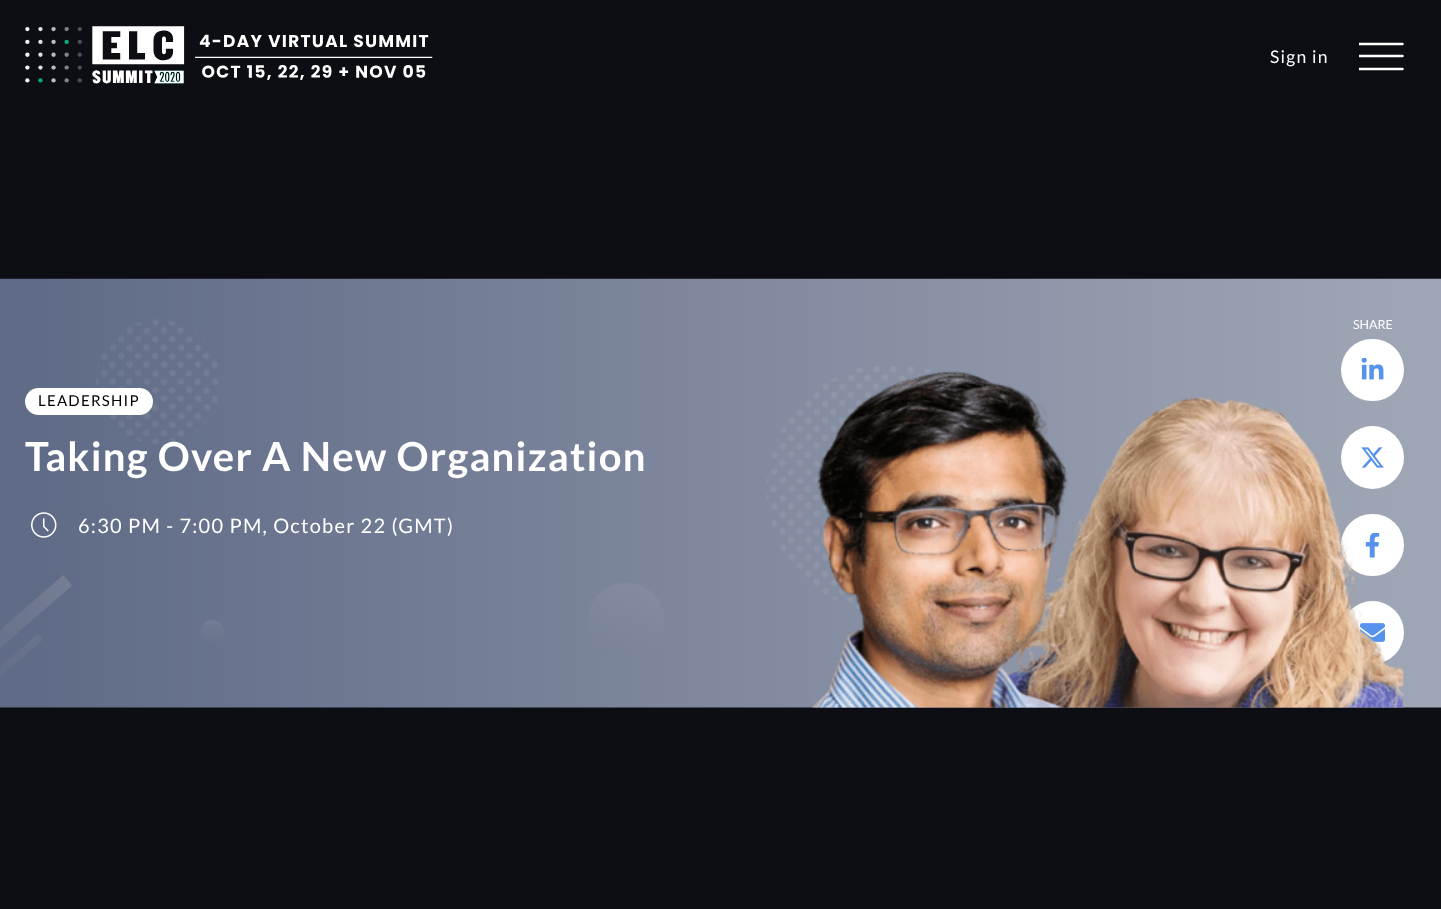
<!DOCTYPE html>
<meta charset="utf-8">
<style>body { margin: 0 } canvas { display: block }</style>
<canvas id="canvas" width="1441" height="909"></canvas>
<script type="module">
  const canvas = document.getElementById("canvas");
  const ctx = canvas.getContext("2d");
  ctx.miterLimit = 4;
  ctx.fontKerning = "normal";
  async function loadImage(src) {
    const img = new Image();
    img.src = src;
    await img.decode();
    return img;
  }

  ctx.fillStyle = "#0c0e13";
  ctx.fillRect(0, 0, 1441, 909);
  ctx.drawImage(await loadImage("img1.png"), 25, 26, 408, 58);
  ctx.letterSpacing = "1.25px";
  ctx.font = "17.5px Lato";
  ctx.fillStyle = "#ffffff";
  ctx.fillText("Sign in", 1270, 63);
  ctx.save();
  ctx.beginPath();
  ctx.rect(1359, 31, 50, 50);
  ctx.clip();
  ctx.beginPath();
  ctx.moveTo(1365, 56);
  ctx.lineTo(1402.5, 56);
  ctx.lineTo(1359, 56);
  ctx.moveTo(1365, 44);
  ctx.lineTo(1402.5, 44);
  ctx.lineTo(1359, 44);
  ctx.moveTo(1365, 69);
  ctx.lineTo(1402.5, 69);
  ctx.lineTo(1359, 69);
  ctx.strokeStyle = "#ffffff";
  ctx.lineWidth = 2.5;
  ctx.lineCap = "round";
  ctx.lineJoin = "round";
  ctx.stroke();
  ctx.restore();
  ctx.drawImage(await loadImage("img2.png"), 0, 278, 1441, 430);
  ctx.letterSpacing = "0px";
  ctx.font = "12.5px Lato";
  ctx.fillText("SHARE", 1353, 329);
  ctx.beginPath();
  ctx.roundRect(1341, 339, 63, 62, 31);
  ctx.fill();
  ctx.drawImage(await loadImage("img3.png"), 1361, 358, 23, 22);
  ctx.beginPath();
  ctx.arc(1372.5, 457.5, 31.5, 0, Math.PI * 2);
  ctx.fill();
  ctx.drawImage(await loadImage("img4.png"), 1361, 447, 23, 21);
  ctx.beginPath();
  ctx.roundRect(1341, 514, 63, 62, 31);
  ctx.fill();
  ctx.drawImage(await loadImage("img5.png"), 1365, 533, 15, 25);
  ctx.beginPath();
  ctx.arc(1372.5, 632.5, 31.5, 0, Math.PI * 2);
  ctx.fill();
  ctx.drawImage(await loadImage("img6.png"), 1360, 623, 25, 19);
  ctx.beginPath();
  ctx.roundRect(25, 388, 128, 27, 13.5);
  ctx.fill();
  ctx.letterSpacing = "1.25px";
  ctx.font = "15px Lato";
  ctx.fillStyle = "#000000";
  ctx.fillText("LEADERSHIP", 38, 406);
  ctx.font = "bold 40px Lato";
  ctx.fillStyle = "#ffffff";
  ctx.fillText("Taking Over A New Organization", 25, 471);
  ctx.drawImage(await loadImage("img7.png"), 31, 512, 26, 26);
  ctx.font = "20px Lato";
  ctx.fillText("6:30 PM - 7:00 PM, October 22 (GMT)", 78, 533);
  ctx.drawImage(await loadImage("img8.png"), 811, 371, 593, 337);
</script>
